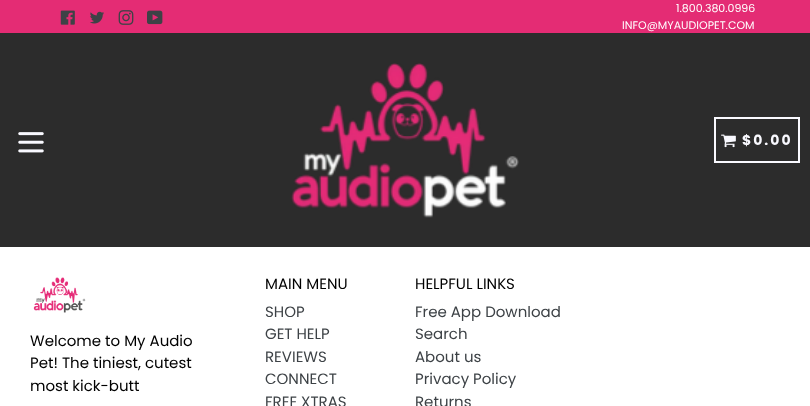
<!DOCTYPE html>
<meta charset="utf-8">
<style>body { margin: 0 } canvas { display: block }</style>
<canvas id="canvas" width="810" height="406"></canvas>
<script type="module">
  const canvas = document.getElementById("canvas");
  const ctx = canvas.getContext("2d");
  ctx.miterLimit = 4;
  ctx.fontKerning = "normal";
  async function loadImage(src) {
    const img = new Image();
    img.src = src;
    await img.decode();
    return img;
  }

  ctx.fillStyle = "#ffffff";
  ctx.fillRect(0, 0, 810, 406);
  ctx.fillStyle = "#e42c74";
  ctx.fillRect(0, 0, 810, 33);
  ctx.drawImage(await loadImage("img1.png"), 60, 10, 15, 15);
  ctx.drawImage(await loadImage("img2.png"), 90, 11, 14, 13);
  ctx.drawImage(await loadImage("img3.png"), 118, 10, 16, 15);
  ctx.drawImage(await loadImage("img4.png"), 147, 10, 16, 15);
  ctx.font = "11px Poppins";
  ctx.fillStyle = "#ffffff";
  ctx.fillText("1.800.380.0996", 676, 12);
  ctx.fillText("INFO@MYAUDIOPET.COM", 622, 29);
  ctx.fillStyle = "#2c2c2c";
  ctx.fillRect(0, 33, 810, 214);
  ctx.drawImage(await loadImage("img5.png"), 18, 132, 26, 21);
  ctx.drawImage(await loadImage("img6.png"), 290, 63, 229, 155);
  ctx.strokeStyle = "#f9f9ff";
  ctx.lineWidth = 2;
  ctx.strokeRect(715, 118, 84, 44);
  ctx.drawImage(await loadImage("img7.png"), 721, 134, 15, 14);
  ctx.letterSpacing = "2px";
  ctx.font = "bold 14px Poppins";
  ctx.fillStyle = "#f9f9ff";
  ctx.fillText("$0.00", 742, 145);
  ctx.drawImage(await loadImage("img8.png"), 33, 277, 53, 36);
  ctx.letterSpacing = "0px";
  ctx.font = "15px Poppins";
  ctx.fillStyle = "#000000";
  ctx.fillText("Welcome to My Audio", 30, 346);
  ctx.fillText("Pet! The tiniest, cutest", 30, 368);
  ctx.fillText("most kick-butt", 30, 391);
  ctx.fillText("MAIN MENU", 265, 289);
  ctx.fillStyle = "#3d4246";
  ctx.fillText("SHOP", 265, 317);
  ctx.fillText("GET HELP", 265, 339);
  ctx.fillText("REVIEWS", 265, 362);
  ctx.fillText("CONNECT", 265, 384);
  ctx.fillText("FREE XTRAS", 265, 407);
  ctx.fillStyle = "#000000";
  ctx.fillText("HELPFUL LINKS", 415, 289);
  ctx.fillStyle = "#3d4246";
  ctx.fillText("Free App Download", 415, 317);
  ctx.fillText("Search", 415, 339);
  ctx.fillText("About us", 415, 362);
  ctx.fillText("Privacy Policy", 415, 384);
  ctx.fillText("Returns", 415, 407);
</script>
